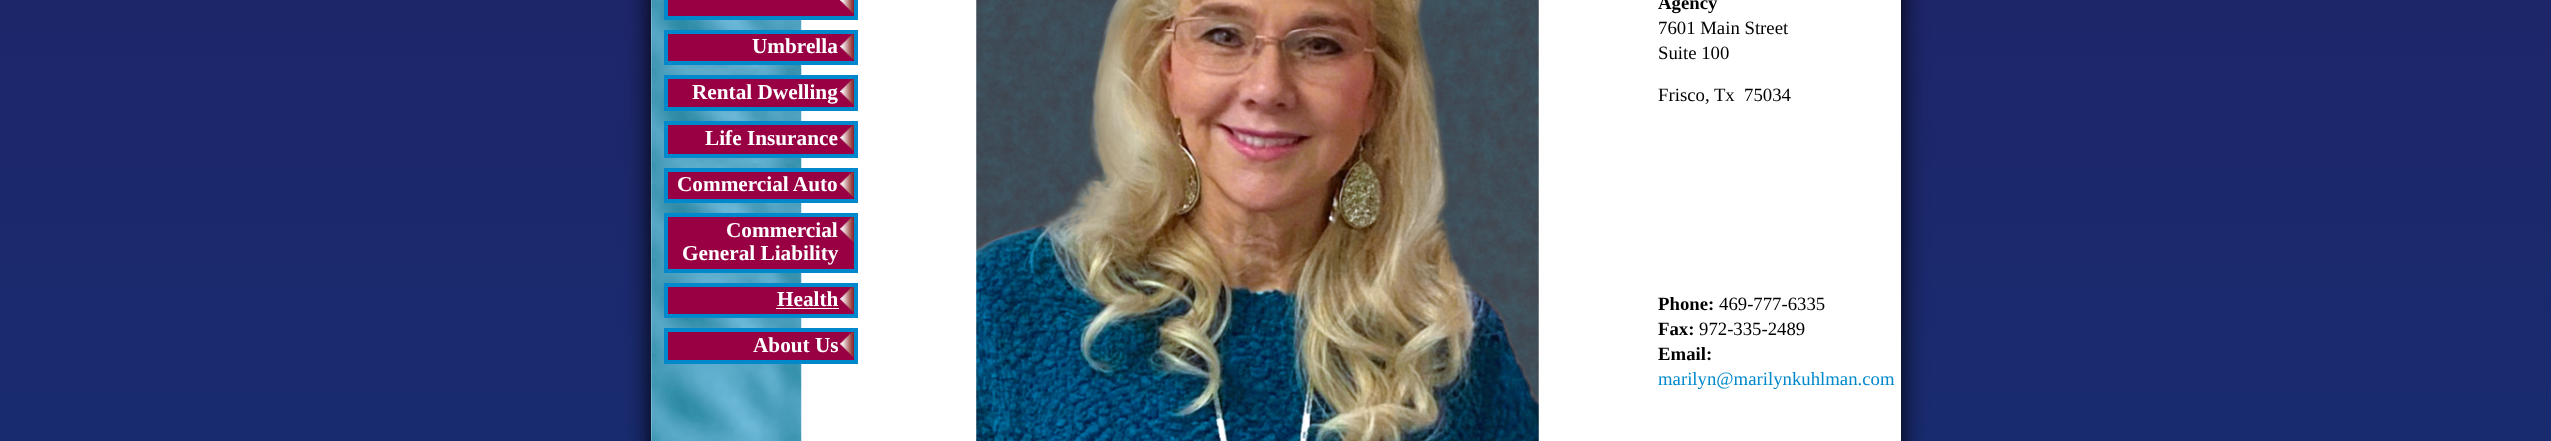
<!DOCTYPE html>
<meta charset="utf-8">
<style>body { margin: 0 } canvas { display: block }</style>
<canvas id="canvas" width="2551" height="441"></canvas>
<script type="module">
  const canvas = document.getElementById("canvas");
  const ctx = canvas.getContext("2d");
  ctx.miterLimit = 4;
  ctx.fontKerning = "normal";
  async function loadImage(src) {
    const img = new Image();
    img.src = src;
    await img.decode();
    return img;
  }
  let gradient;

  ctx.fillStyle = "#ffffff";
  ctx.fillRect(0, 0, 2551, 441);
  gradient = ctx.createLinearGradient(0, -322, 0, 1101);
  gradient.addColorStop(0, "#222266");
  gradient.addColorStop(1, "#113377");
  ctx.fillStyle = gradient;
  ctx.fillRect(0, 0, 2551, 441);
  ctx.fillStyle = "#000000";
  ctx.filter = "blur(12.5px)";
  ctx.beginPath();
  ctx.rect(651, -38, 1250, 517);
  ctx.fill();
  ctx.filter = "none";
  ctx.fillStyle = "#ffffff";
  ctx.fillRect(651, 0, 1250, 441);
  ctx.drawImage(await loadImage("img1.png"), 651, 0, 151, 441);
  ctx.fillStyle = "#990044";
  ctx.fillRect(668, 0, 186, 16);
  ctx.drawImage(await loadImage("img2.png"), 840, 0, 14, 14);
  ctx.strokeStyle = "#0088cc";
  ctx.lineWidth = 4;
  ctx.strokeRect(666, -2, 190, 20);
  ctx.fillRect(668, 34, 186, 27);
  ctx.drawImage(await loadImage("img3.png"), 840, 34, 14, 26);
  ctx.strokeRect(666, 32, 190, 31);
  ctx.font = "bold 21.25px Liberation Serif";
  ctx.fillStyle = "#ffffff";
  ctx.fillText("Umbrella", 752, 53);
  ctx.fillStyle = "#990044";
  ctx.fillRect(668, 79, 186, 28);
  ctx.drawImage(await loadImage("img3.png"), 840, 79, 14, 26);
  ctx.strokeRect(666, 77, 190, 32);
  ctx.fillStyle = "#ffffff";
  ctx.fillText("Rental Dwelling", 692, 99);
  ctx.fillStyle = "#990044";
  ctx.fillRect(668, 125, 186, 29);
  ctx.drawImage(await loadImage("img4.png"), 840, 125, 14, 26);
  ctx.strokeRect(666, 123, 190, 33);
  ctx.fillStyle = "#ffffff";
  ctx.fillText("Life Insurance", 705, 145);
  ctx.fillStyle = "#990044";
  ctx.fillRect(668, 172, 186, 27);
  ctx.drawImage(await loadImage("img5.png"), 840, 172, 14, 25);
  ctx.strokeRect(666, 170, 190, 31);
  ctx.fillStyle = "#ffffff";
  ctx.fillText("Commercial Auto", 677, 191);
  ctx.fillStyle = "#990044";
  ctx.fillRect(668, 217, 186, 52);
  ctx.drawImage(await loadImage("img5.png"), 840, 217, 14, 25);
  ctx.strokeRect(666, 215, 190, 56);
  ctx.fillStyle = "#ffffff";
  ctx.fillText("Commercial", 726, 237);
  ctx.fillText("General Liability", 682, 260);
  ctx.fillStyle = "#990044";
  ctx.fillRect(668, 287, 186, 27);
  ctx.drawImage(await loadImage("img5.png"), 840, 287, 14, 25);
  ctx.strokeRect(666, 285, 190, 31);
  ctx.fillStyle = "#ffffff";
  ctx.fillText("Health", 777, 306);
  ctx.fillRect(776, 308, 63, 1);
  ctx.fillStyle = "#990044";
  ctx.fillRect(668, 332, 186, 28);
  ctx.drawImage(await loadImage("img5.png"), 840, 332, 14, 25);
  ctx.strokeRect(666, 330, 190, 32);
  ctx.fillStyle = "#ffffff";
  ctx.fillText("About Us", 753, 352);
  ctx.drawImage(await loadImage("img6.png"), 976, 0, 563, 441);
  ctx.font = "bold 18.75px Liberation Serif";
  ctx.fillStyle = "#000000";
  ctx.fillText("Agency", 1658, 9);
  ctx.font = "18.75px Liberation Serif";
  ctx.fillText("7601 Main Street", 1658, 34);
  ctx.fillText("Suite 100", 1658, 59);
  ctx.fillText("Frisco, Tx  75034", 1658, 101);
  ctx.font = "bold 18.75px Liberation Serif";
  ctx.fillText("Phone:", 1658, 310);
  ctx.font = "18.75px Liberation Serif";
  ctx.fillText("469-777-6335", 1719, 310);
  ctx.font = "bold 18.75px Liberation Serif";
  ctx.fillText("Fax:", 1658, 335);
  ctx.font = "18.75px Liberation Serif";
  ctx.fillText("972-335-2489", 1699, 335);
  ctx.font = "bold 18.75px Liberation Serif";
  ctx.fillText("Email:", 1658, 360);
  ctx.font = "18.75px Liberation Serif";
  ctx.fillStyle = "#0088cc";
  ctx.fillText("marilyn@marilynkuhlman.com", 1658, 385);
</script>
